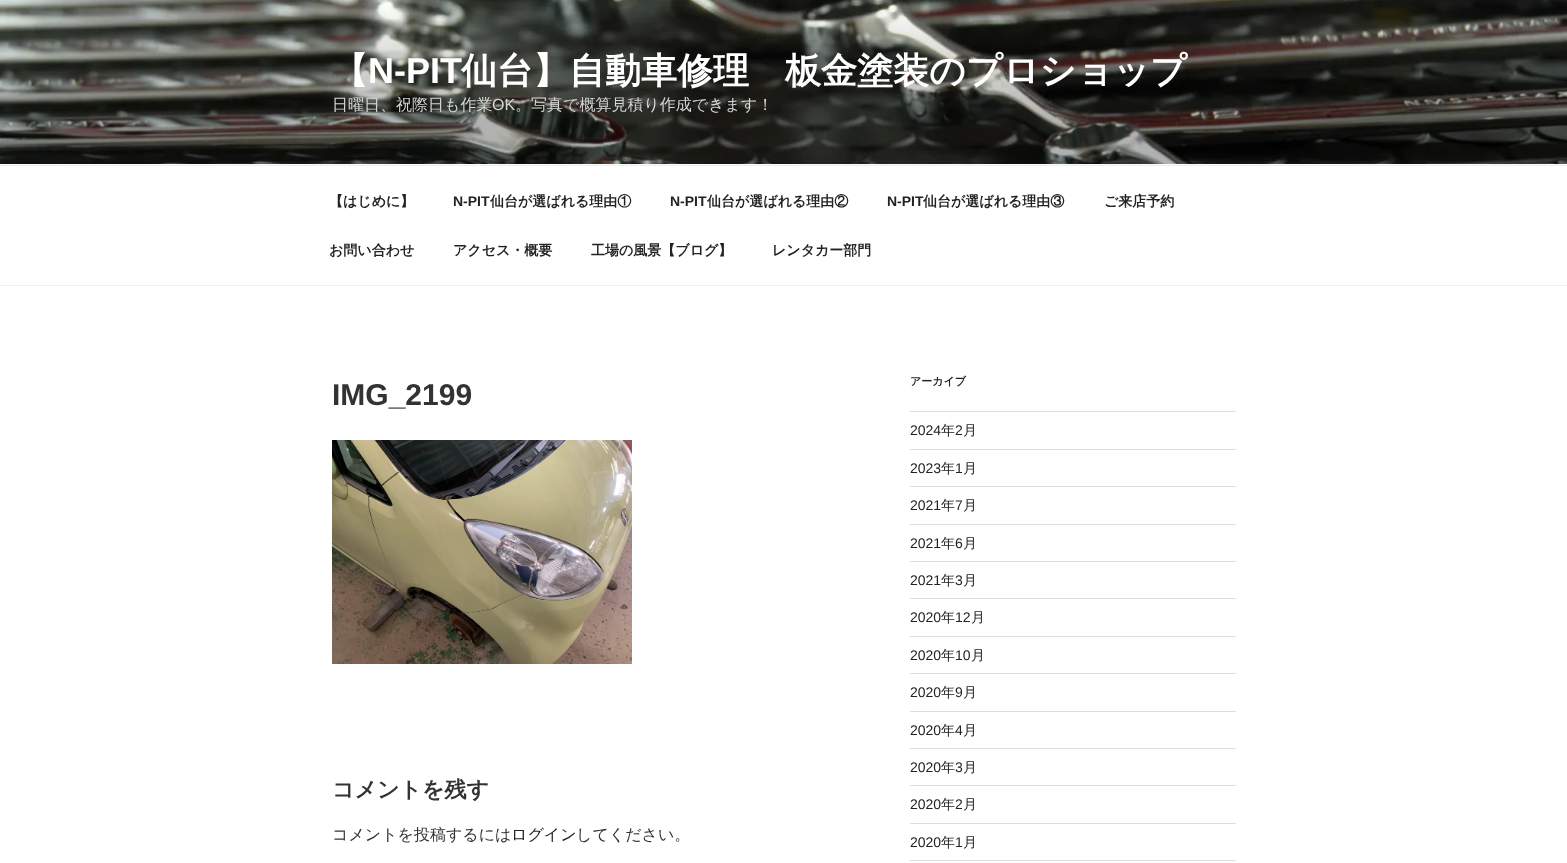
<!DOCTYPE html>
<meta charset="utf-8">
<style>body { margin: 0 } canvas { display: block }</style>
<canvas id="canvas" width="1567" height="863"></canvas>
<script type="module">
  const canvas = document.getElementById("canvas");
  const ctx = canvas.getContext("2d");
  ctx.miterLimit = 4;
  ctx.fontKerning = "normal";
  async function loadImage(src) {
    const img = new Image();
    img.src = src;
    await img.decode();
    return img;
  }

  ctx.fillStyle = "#ffffff";
  ctx.fillRect(0, 0, 1567, 863);
  ctx.fillStyle = "#fafafa";
  ctx.fillRect(0, 164, 1567, 1);
  ctx.drawImage(await loadImage("img1.png"), 0, 0, 1567, 164);
  ctx.font = "bold 36px WenQuanYi Zen Hei";
  ctx.fillStyle = "#ffffff";
  ctx.fillText("【", 332, 83);
  ctx.font = "bold 36px Liberation Sans";
  ctx.fillText("N-PIT", 368, 83);
  ctx.font = "bold 36px WenQuanYi Zen Hei";
  ctx.fillText("仙台】自動車修理　板金塗装のプロショップ", 461, 83);
  ctx.font = "500 16px WenQuanYi Zen Hei";
  ctx.fillStyle = "#d5d6d5";
  ctx.fillText("日曜日、祝際日も作業", 332, 110);
  ctx.font = "16px Liberation Sans";
  ctx.fillText("OK", 492, 110);
  ctx.font = "500 16px WenQuanYi Zen Hei";
  ctx.fillText("。写真で概算見積り作成できます！", 515, 110);
  ctx.fillStyle = "#eeeeee";
  ctx.fillRect(0, 165, 1567, 1);
  ctx.fillRect(0, 285, 1567, 1);
  ctx.font = "bold 14px WenQuanYi Zen Hei";
  ctx.fillStyle = "#222222";
  ctx.fillText("【はじめに】", 329, 206);
  ctx.font = "bold 14px Liberation Sans";
  ctx.fillText("N-PIT", 453, 206);
  ctx.font = "bold 14px WenQuanYi Zen Hei";
  ctx.fillText("仙台が選ばれる理由①", 490, 206);
  ctx.font = "bold 14px Liberation Sans";
  ctx.fillText("N-PIT", 670, 206);
  ctx.font = "bold 14px WenQuanYi Zen Hei";
  ctx.fillText("仙台が選ばれる理由②", 707, 206);
  ctx.font = "bold 14px Liberation Sans";
  ctx.fillText("N-PIT", 887, 206);
  ctx.font = "bold 14px WenQuanYi Zen Hei";
  ctx.fillText("仙台が選ばれる理由③", 923, 206);
  ctx.fillText("ご来店予約", 1104, 206);
  ctx.fillText("お問い合わせ", 329, 255);
  ctx.fillText("アクセス・概要", 453, 255);
  ctx.fillText("工場の風景【ブログ】", 591, 255);
  ctx.fillText("レンタカー部門", 772, 255);
  ctx.font = "bold 30px Liberation Sans";
  ctx.fillStyle = "#333333";
  ctx.fillText("IMG_2199", 332, 405);
  ctx.drawImage(await loadImage("img2.png"), 332, 440, 300, 224);
  ctx.font = "bold 22px WenQuanYi Zen Hei";
  ctx.fillText("コメントを残す", 332, 797);
  ctx.font = "500 16px WenQuanYi Zen Hei";
  ctx.fillText("コメントを投稿するには", 332, 840);
  ctx.fillStyle = "#222222";
  ctx.fillText("ログイン", 511, 840);
  ctx.fillStyle = "#333333";
  ctx.fillText("してください。", 576, 840);
  ctx.font = "bold 11px WenQuanYi Zen Hei";
  ctx.fillStyle = "#222222";
  ctx.fillText("アーカイブ", 910, 385);
  ctx.fillStyle = "#dddddd";
  ctx.fillRect(910, 411, 326, 1);
  ctx.fillRect(910, 449, 326, 1);
  ctx.font = "14px Liberation Sans";
  ctx.fillStyle = "#222222";
  ctx.fillText("2024", 910, 435);
  ctx.font = "500 14px WenQuanYi Zen Hei";
  ctx.fillText("年", 941, 435);
  ctx.font = "14px Liberation Sans";
  ctx.fillText("2", 955, 435);
  ctx.font = "500 14px WenQuanYi Zen Hei";
  ctx.fillText("月", 963, 435);
  ctx.fillStyle = "#dddddd";
  ctx.fillRect(910, 486, 326, 1);
  ctx.font = "14px Liberation Sans";
  ctx.fillStyle = "#222222";
  ctx.fillText("2023", 910, 473);
  ctx.font = "500 14px WenQuanYi Zen Hei";
  ctx.fillText("年", 941, 473);
  ctx.font = "14px Liberation Sans";
  ctx.fillText("1", 955, 473);
  ctx.font = "500 14px WenQuanYi Zen Hei";
  ctx.fillText("月", 963, 473);
  ctx.fillStyle = "#dddddd";
  ctx.fillRect(910, 524, 326, 1);
  ctx.font = "14px Liberation Sans";
  ctx.fillStyle = "#222222";
  ctx.fillText("2021", 910, 510);
  ctx.font = "500 14px WenQuanYi Zen Hei";
  ctx.fillText("年", 941, 510);
  ctx.font = "14px Liberation Sans";
  ctx.fillText("7", 955, 510);
  ctx.font = "500 14px WenQuanYi Zen Hei";
  ctx.fillText("月", 963, 510);
  ctx.fillStyle = "#dddddd";
  ctx.fillRect(910, 561, 326, 1);
  ctx.font = "14px Liberation Sans";
  ctx.fillStyle = "#222222";
  ctx.fillText("2021", 910, 548);
  ctx.font = "500 14px WenQuanYi Zen Hei";
  ctx.fillText("年", 941, 548);
  ctx.font = "14px Liberation Sans";
  ctx.fillText("6", 955, 548);
  ctx.font = "500 14px WenQuanYi Zen Hei";
  ctx.fillText("月", 963, 548);
  ctx.fillStyle = "#dddddd";
  ctx.fillRect(910, 598, 326, 1);
  ctx.font = "14px Liberation Sans";
  ctx.fillStyle = "#222222";
  ctx.fillText("2021", 910, 585);
  ctx.font = "500 14px WenQuanYi Zen Hei";
  ctx.fillText("年", 941, 585);
  ctx.font = "14px Liberation Sans";
  ctx.fillText("3", 955, 585);
  ctx.font = "500 14px WenQuanYi Zen Hei";
  ctx.fillText("月", 963, 585);
  ctx.fillStyle = "#dddddd";
  ctx.fillRect(910, 636, 326, 1);
  ctx.font = "14px Liberation Sans";
  ctx.fillStyle = "#222222";
  ctx.fillText("2020", 910, 622);
  ctx.font = "500 14px WenQuanYi Zen Hei";
  ctx.fillText("年", 941, 622);
  ctx.font = "14px Liberation Sans";
  ctx.fillText("12", 955, 622);
  ctx.font = "500 14px WenQuanYi Zen Hei";
  ctx.fillText("月", 971, 622);
  ctx.fillStyle = "#dddddd";
  ctx.fillRect(910, 673, 326, 1);
  ctx.font = "14px Liberation Sans";
  ctx.fillStyle = "#222222";
  ctx.fillText("2020", 910, 660);
  ctx.font = "500 14px WenQuanYi Zen Hei";
  ctx.fillText("年", 941, 660);
  ctx.font = "14px Liberation Sans";
  ctx.fillText("10", 955, 660);
  ctx.font = "500 14px WenQuanYi Zen Hei";
  ctx.fillText("月", 971, 660);
  ctx.fillStyle = "#dddddd";
  ctx.fillRect(910, 711, 326, 1);
  ctx.font = "14px Liberation Sans";
  ctx.fillStyle = "#222222";
  ctx.fillText("2020", 910, 697);
  ctx.font = "500 14px WenQuanYi Zen Hei";
  ctx.fillText("年", 941, 697);
  ctx.font = "14px Liberation Sans";
  ctx.fillText("9", 955, 697);
  ctx.font = "500 14px WenQuanYi Zen Hei";
  ctx.fillText("月", 963, 697);
  ctx.fillStyle = "#dddddd";
  ctx.fillRect(910, 748, 326, 1);
  ctx.font = "14px Liberation Sans";
  ctx.fillStyle = "#222222";
  ctx.fillText("2020", 910, 735);
  ctx.font = "500 14px WenQuanYi Zen Hei";
  ctx.fillText("年", 941, 735);
  ctx.font = "14px Liberation Sans";
  ctx.fillText("4", 955, 735);
  ctx.font = "500 14px WenQuanYi Zen Hei";
  ctx.fillText("月", 963, 735);
  ctx.fillStyle = "#dddddd";
  ctx.fillRect(910, 785, 326, 1);
  ctx.font = "14px Liberation Sans";
  ctx.fillStyle = "#222222";
  ctx.fillText("2020", 910, 772);
  ctx.font = "500 14px WenQuanYi Zen Hei";
  ctx.fillText("年", 941, 772);
  ctx.font = "14px Liberation Sans";
  ctx.fillText("3", 955, 772);
  ctx.font = "500 14px WenQuanYi Zen Hei";
  ctx.fillText("月", 963, 772);
  ctx.fillStyle = "#dddddd";
  ctx.fillRect(910, 823, 326, 1);
  ctx.font = "14px Liberation Sans";
  ctx.fillStyle = "#222222";
  ctx.fillText("2020", 910, 809);
  ctx.font = "500 14px WenQuanYi Zen Hei";
  ctx.fillText("年", 941, 809);
  ctx.font = "14px Liberation Sans";
  ctx.fillText("2", 955, 809);
  ctx.font = "500 14px WenQuanYi Zen Hei";
  ctx.fillText("月", 963, 809);
  ctx.fillStyle = "#dddddd";
  ctx.fillRect(910, 860, 326, 1);
  ctx.font = "14px Liberation Sans";
  ctx.fillStyle = "#222222";
  ctx.fillText("2020", 910, 847);
  ctx.font = "500 14px WenQuanYi Zen Hei";
  ctx.fillText("年", 941, 847);
  ctx.font = "14px Liberation Sans";
  ctx.fillText("1", 955, 847);
  ctx.font = "500 14px WenQuanYi Zen Hei";
  ctx.fillText("月", 963, 847);
</script>
